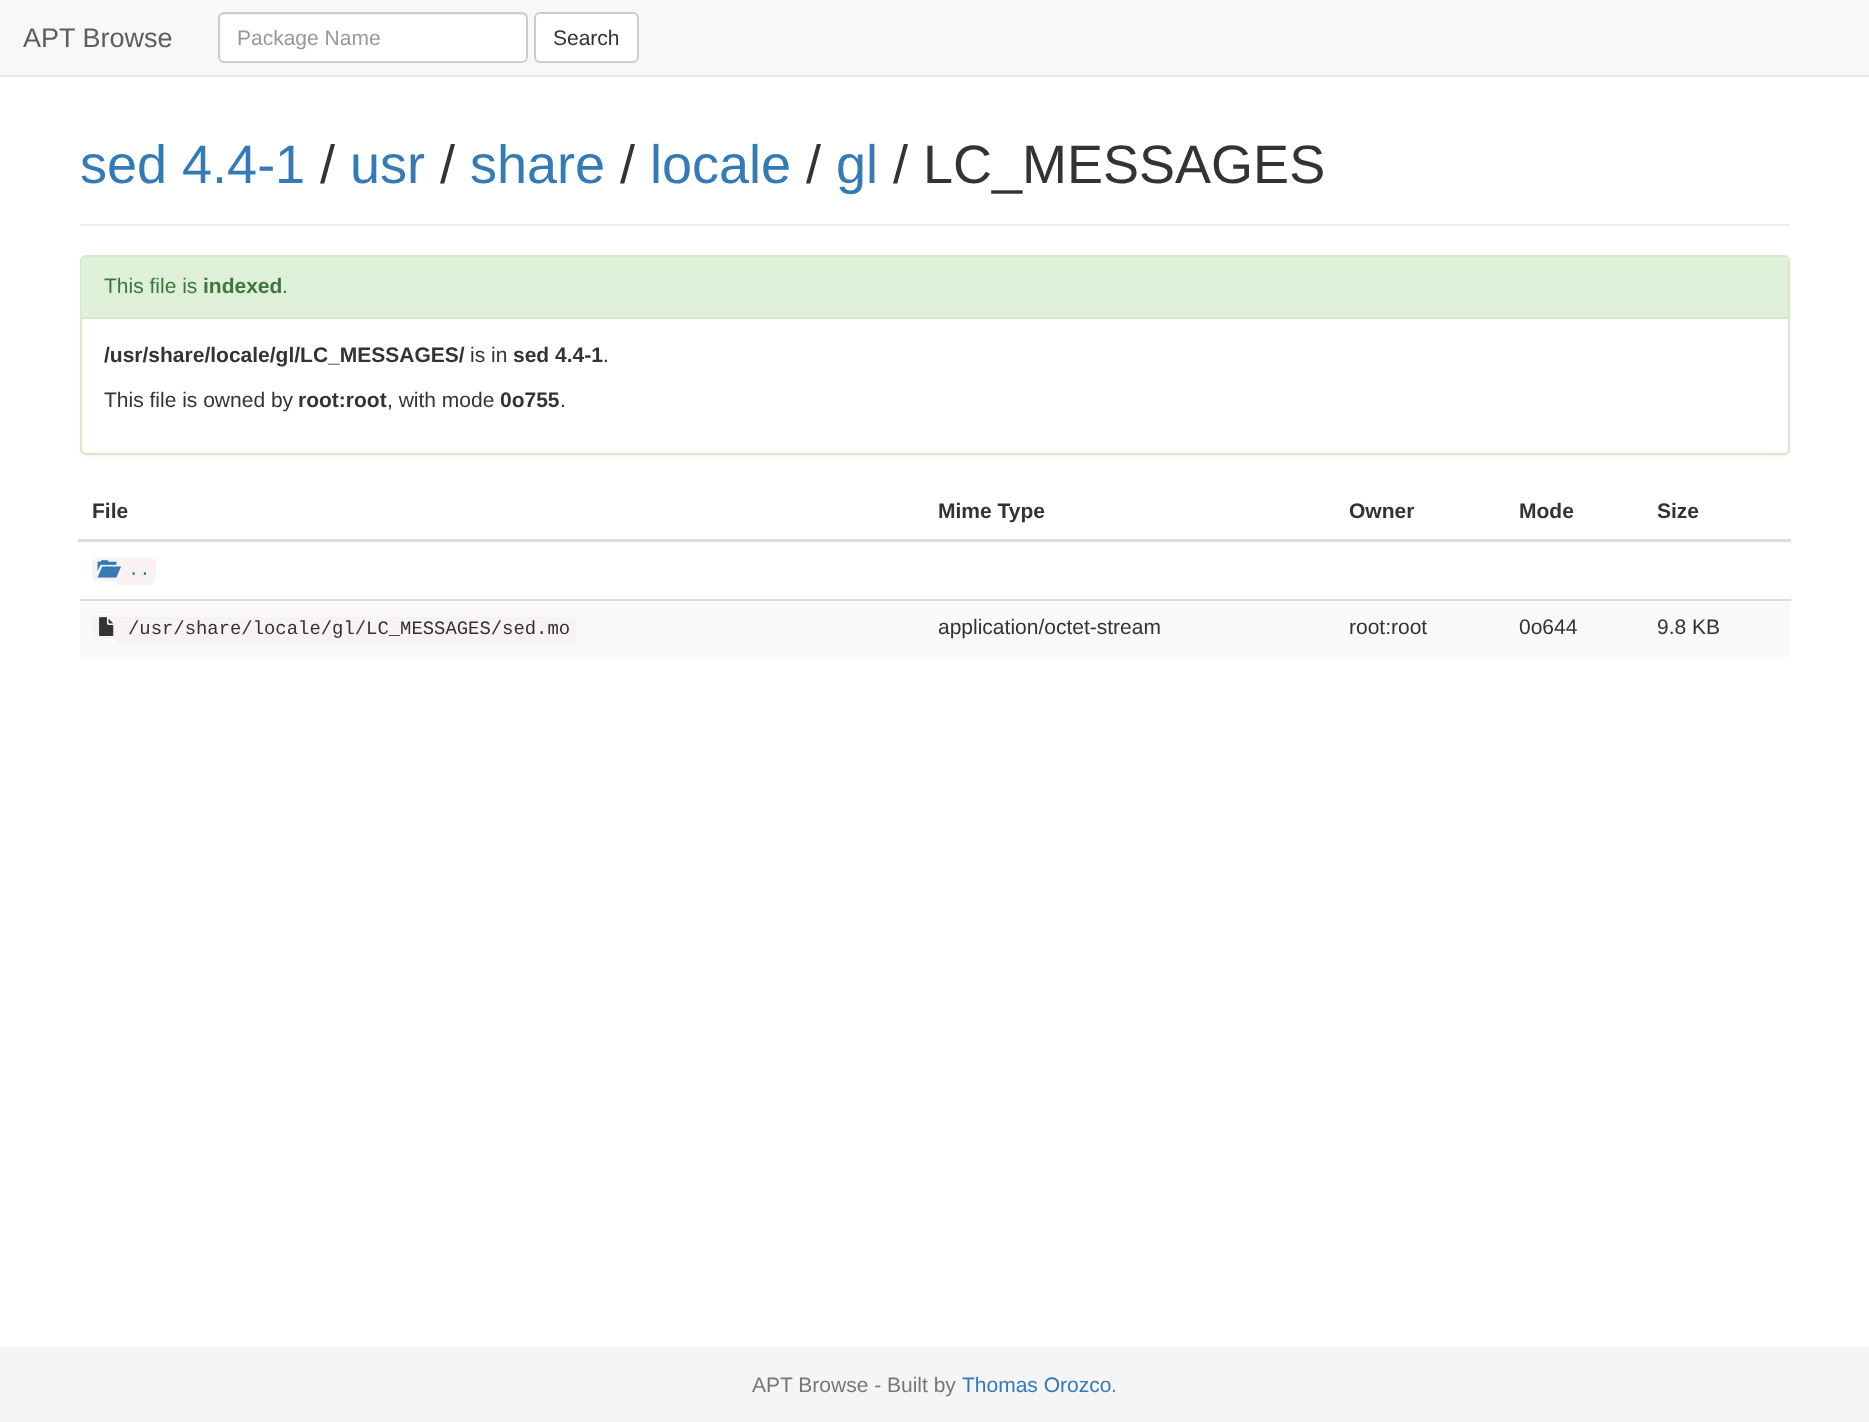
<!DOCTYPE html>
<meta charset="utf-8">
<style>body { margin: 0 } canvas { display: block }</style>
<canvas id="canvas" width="1869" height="1422"></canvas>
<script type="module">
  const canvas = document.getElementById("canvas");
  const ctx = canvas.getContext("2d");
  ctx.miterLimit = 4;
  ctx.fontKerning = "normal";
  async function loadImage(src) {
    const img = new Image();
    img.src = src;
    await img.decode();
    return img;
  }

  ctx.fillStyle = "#ffffff";
  ctx.fillRect(0, 0, 1869, 1422);
  ctx.fillStyle = "#f8f8f8";
  ctx.fillRect(0, 0, 1869, 75);
  ctx.fillStyle = "#e7e7e7";
  ctx.fillRect(0, 75, 1869, 2);
  ctx.font = "27px Liberation Sans";
  ctx.fillStyle = "#5e5e5e";
  ctx.fillText("APT Browse", 23, 47);
  ctx.fillStyle = "#ffffff";
  ctx.beginPath();
  ctx.roundRect(218, 12, 310, 51, 6);
  ctx.fill();
  ctx.fillStyle = "#ececec";
  ctx.beginPath();
  ctx.moveTo(224, 15);
  ctx.lineTo(522, 15);
  ctx.bezierCurveTo(524, 15, 526, 17, 526, 20);
  ctx.lineTo(526, 58);
  ctx.lineTo(525, 61);
  ctx.bezierCurveTo(526, 60, 527, 58, 527, 57);
  ctx.lineTo(527, 19);
  ctx.bezierCurveTo(527, 16, 525, 14, 522, 14);
  ctx.lineTo(224, 14);
  ctx.bezierCurveTo(221, 14, 219, 16, 219, 19);
  ctx.lineTo(219, 20);
  ctx.bezierCurveTo(219, 17, 221, 15, 224, 15);
  ctx.closePath();
  ctx.fill();
  ctx.beginPath();
  ctx.roundRect(219, 13, 308, 49, 5);
  ctx.strokeStyle = "#cccccc";
  ctx.lineWidth = 2;
  ctx.stroke();
  ctx.font = "21px Liberation Sans";
  ctx.fillStyle = "#999999";
  ctx.fillText("Package Name", 237, 45);
  ctx.fillStyle = "#ffffff";
  ctx.beginPath();
  ctx.roundRect(535, 13, 103, 49, 5);
  ctx.fill();
  ctx.stroke();
  ctx.fillStyle = "#333333";
  ctx.fillText("Search", 553, 45);
  ctx.fillStyle = "#eeeeee";
  ctx.fillRect(80, 224, 1710, 2);
  ctx.font = "54px Liberation Sans";
  ctx.fillStyle = "#337ab7";
  ctx.fillText("sed 4.4-1", 80, 183);
  ctx.fillStyle = "#333333";
  ctx.fillText("/", 320, 183);
  ctx.fillStyle = "#337ab7";
  ctx.fillText("usr", 350, 183);
  ctx.fillStyle = "#333333";
  ctx.fillText("/", 440, 183);
  ctx.fillStyle = "#337ab7";
  ctx.fillText("share", 470, 183);
  ctx.fillStyle = "#333333";
  ctx.fillText("/", 620, 183);
  ctx.fillStyle = "#337ab7";
  ctx.fillText("locale", 650, 183);
  ctx.fillStyle = "#333333";
  ctx.fillText("/", 806, 183);
  ctx.fillStyle = "#337ab7";
  ctx.fillText("gl", 836, 183);
  ctx.fillStyle = "#333333";
  ctx.fillText("/ LC_MESSAGES", 893, 183);
  ctx.fillStyle = "rgba(0, 0, 0, 0.05)";
  ctx.filter = "blur(1px)";
  ctx.beginPath();
  ctx.roundRect(80, 257, 1710, 199, 6);
  ctx.fill();
  ctx.filter = "none";
  ctx.fillStyle = "#ffffff";
  ctx.beginPath();
  ctx.roundRect(81, 256, 1708, 198, 5);
  ctx.fill();
  ctx.strokeStyle = "#d6e9c6";
  ctx.stroke();
  ctx.fillStyle = "#dff0d8";
  ctx.beginPath();
  ctx.roundRect(81, 257, 1707, 61, [5, 5, 0, 0]);
  ctx.fill();
  ctx.fillStyle = "#d6e9c6";
  ctx.fillRect(81, 317, 1707, 2);
  ctx.font = "21px Liberation Sans";
  ctx.fillStyle = "#3c763d";
  ctx.fillText("This file is", 104, 293);
  ctx.font = "bold 21px Liberation Sans";
  ctx.fillText("indexed", 203, 293);
  ctx.font = "21px Liberation Sans";
  ctx.fillText(".", 282, 293);
  ctx.font = "bold 21px Liberation Sans";
  ctx.fillStyle = "#333333";
  ctx.fillText("/usr/share/locale/gl/LC_MESSAGES/", 104, 362);
  ctx.font = "21px Liberation Sans";
  ctx.fillText("is in", 470, 362);
  ctx.font = "bold 21px Liberation Sans";
  ctx.fillText("sed 4.4-1", 513, 362);
  ctx.font = "21px Liberation Sans";
  ctx.fillText(".", 603, 362);
  ctx.fillText("This file is owned by", 104, 407);
  ctx.font = "bold 21px Liberation Sans";
  ctx.fillText("root:root", 298, 407);
  ctx.font = "21px Liberation Sans";
  ctx.fillText(", with mode", 387, 407);
  ctx.font = "bold 21px Liberation Sans";
  ctx.fillText("0o755", 500, 407);
  ctx.font = "21px Liberation Sans";
  ctx.fillText(".", 560, 407);
  ctx.font = "bold 21px Liberation Sans";
  ctx.fillText("File", 92, 518);
  ctx.fillText("Mime Type", 938, 518);
  ctx.fillText("Owner", 1349, 518);
  ctx.fillText("Mode", 1519, 518);
  ctx.fillStyle = "#dddddd";
  ctx.fillRect(78, 539, 1713, 3);
  ctx.fillStyle = "#333333";
  ctx.fillText("Size", 1657, 518);
  ctx.fillStyle = "#f9f2f4";
  ctx.beginPath();
  ctx.roundRect(92, 557, 25, 24, [6, 0, 0, 6]);
  ctx.fill();
  ctx.beginPath();
  ctx.roundRect(117, 558, 39, 27, [0, 6, 6, 0]);
  ctx.fill();
  ctx.drawImage(await loadImage("img1.png"), 97, 560, 24, 18);
  ctx.font = "18.9px Liberation Mono";
  ctx.fillStyle = "#337ab7";
  ctx.fillText("..", 128, 575);
  ctx.fillStyle = "#f9f9f9";
  ctx.fillRect(80, 601, 1710, 56);
  ctx.fillStyle = "#f9f2f4";
  ctx.beginPath();
  ctx.roundRect(92, 615, 25, 24, [6, 0, 0, 6]);
  ctx.fill();
  ctx.beginPath();
  ctx.roundRect(117, 617, 459, 27, [0, 6, 6, 0]);
  ctx.fill();
  ctx.drawImage(await loadImage("img2.png"), 99, 617, 15, 19);
  ctx.fillStyle = "#333333";
  ctx.fillText("/usr/share/locale/gl/LC_MESSAGES/sed.mo", 128, 634);
  ctx.font = "21px Liberation Sans";
  ctx.fillText("application/octet-stream", 938, 634);
  ctx.fillText("root:root", 1349, 634);
  ctx.fillText("0o644", 1519, 634);
  ctx.fillStyle = "#dddddd";
  ctx.fillRect(80, 599, 1711, 2);
  ctx.fillStyle = "#333333";
  ctx.fillText("9.8 KB", 1657, 634);
  ctx.fillStyle = "#f5f5f5";
  ctx.fillRect(0, 1347, 1869, 75);
  ctx.fillStyle = "#777777";
  ctx.fillText("APT Browse - Built by", 752, 1392);
  ctx.fillStyle = "#337ab7";
  ctx.fillText("Thomas Orozco", 962, 1392);
  ctx.fillStyle = "#777777";
  ctx.fillText(".", 1111, 1392);
</script>
